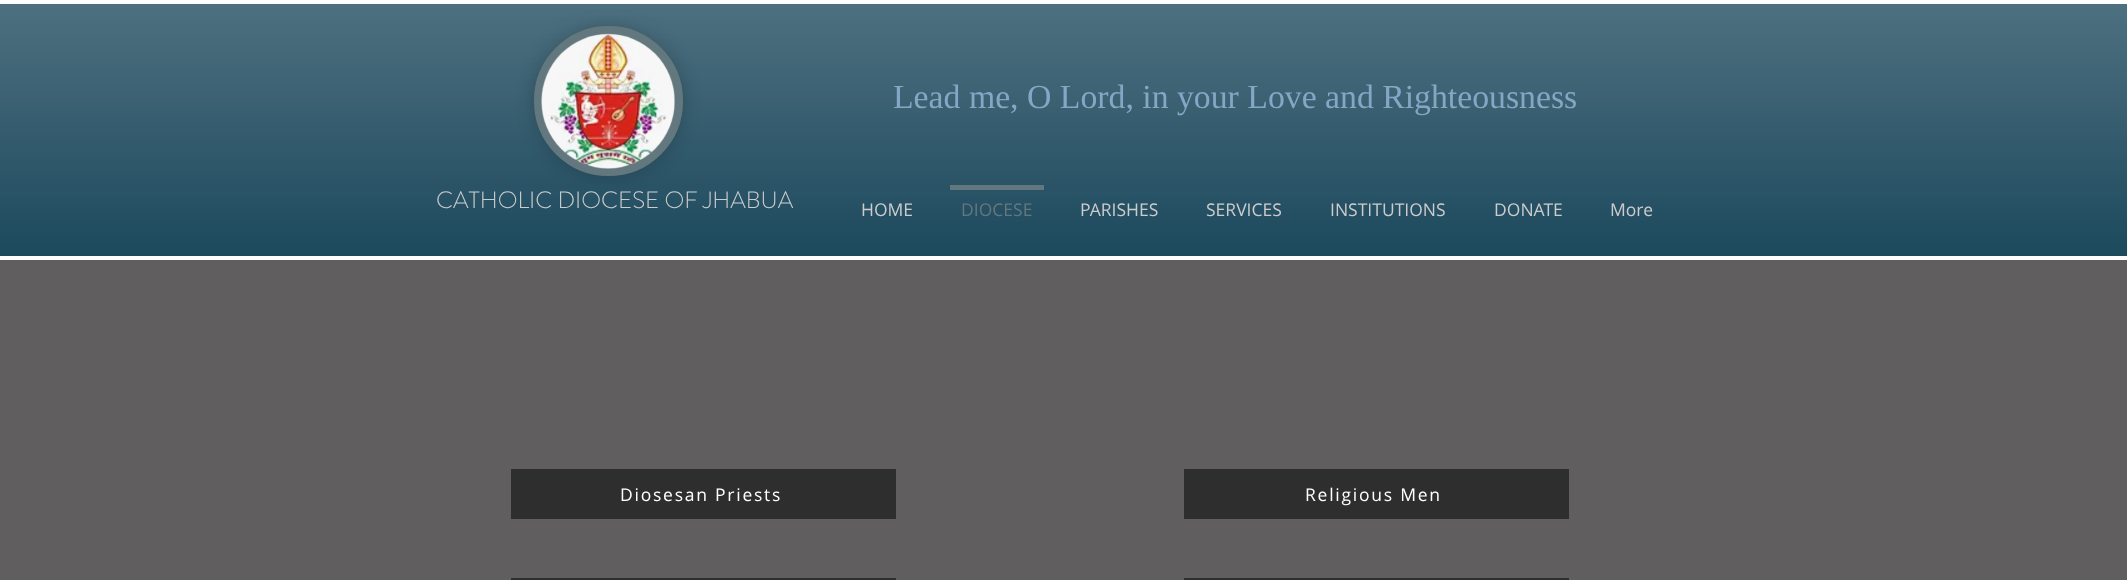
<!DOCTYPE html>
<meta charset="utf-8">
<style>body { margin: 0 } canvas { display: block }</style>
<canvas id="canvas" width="2127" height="580"></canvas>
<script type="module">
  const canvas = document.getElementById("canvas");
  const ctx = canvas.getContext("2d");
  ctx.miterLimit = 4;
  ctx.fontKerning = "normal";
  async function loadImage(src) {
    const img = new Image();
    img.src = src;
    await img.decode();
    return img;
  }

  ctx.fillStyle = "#605e5e";
  ctx.fillRect(0, 0, 2127, 580);
  ctx.fillStyle = "#103f54";
  ctx.fillRect(0, 4, 2127, 252);
  ctx.drawImage(await loadImage("img1.png"), 0, 4, 2127, 252);
  ctx.fillStyle = "#ffffff";
  ctx.fillRect(0, 0, 2127, 4);
  ctx.fillRect(0, 256, 2127, 4);
  ctx.fillStyle = "rgba(0, 0, 0, 0.2)";
  ctx.filter = "blur(9px)";
  ctx.beginPath();
  ctx.roundRect(534, 26, 149, 150, 74.5);
  ctx.fill();
  ctx.filter = "none";
  ctx.fillStyle = "#63787e";
  ctx.beginPath();
  ctx.roundRect(538, 30, 141, 142, 70.5);
  ctx.fill();
  ctx.strokeStyle = "#63787e";
  ctx.lineWidth = 8;
  ctx.stroke();
  ctx.drawImage(await loadImage("img2.png"), 541, 33, 134, 136);
  ctx.font = "33.75px Liberation Serif";
  ctx.fillStyle = "#85a7c6";
  ctx.fillText("Lead me, O Lord, in your Love and Righteousness", 893, 108);
  ctx.font = "300 23.75px 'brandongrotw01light'";
  ctx.fillStyle = "#cccccc";
  ctx.fillText("CATHOLIC DIOCESE OF JHABUA", 436, 208);
  ctx.font = "17.5px Open Sans";
  ctx.fillText("HOME", 861, 216);
  ctx.fillStyle = "#63787e";
  ctx.fillRect(950, 185, 94, 5);
  ctx.fillText("DIOCESE", 961, 216);
  ctx.fillStyle = "#cccccc";
  ctx.fillText("PARISHES", 1080, 216);
  ctx.fillText("SERVICES", 1206, 216);
  ctx.fillText("INSTITUTIONS", 1330, 216);
  ctx.fillText("DONATE", 1494, 216);
  ctx.fillText("More", 1610, 216);
  ctx.fillStyle = "#2f2e2e";
  ctx.fillRect(511, 469, 385, 50);
  ctx.letterSpacing = "1.75px";
  ctx.fillStyle = "#ffffff";
  ctx.fillText("Diosesan Priests", 620, 501);
  ctx.fillStyle = "#2f2e2e";
  ctx.fillRect(1184, 469, 385, 50);
  ctx.fillStyle = "#ffffff";
  ctx.fillText("Religious Men", 1305, 501);
  ctx.fillStyle = "#2f2e2e";
  ctx.fillRect(511, 578, 385, 2);
  ctx.fillRect(1184, 578, 385, 2);
</script>
